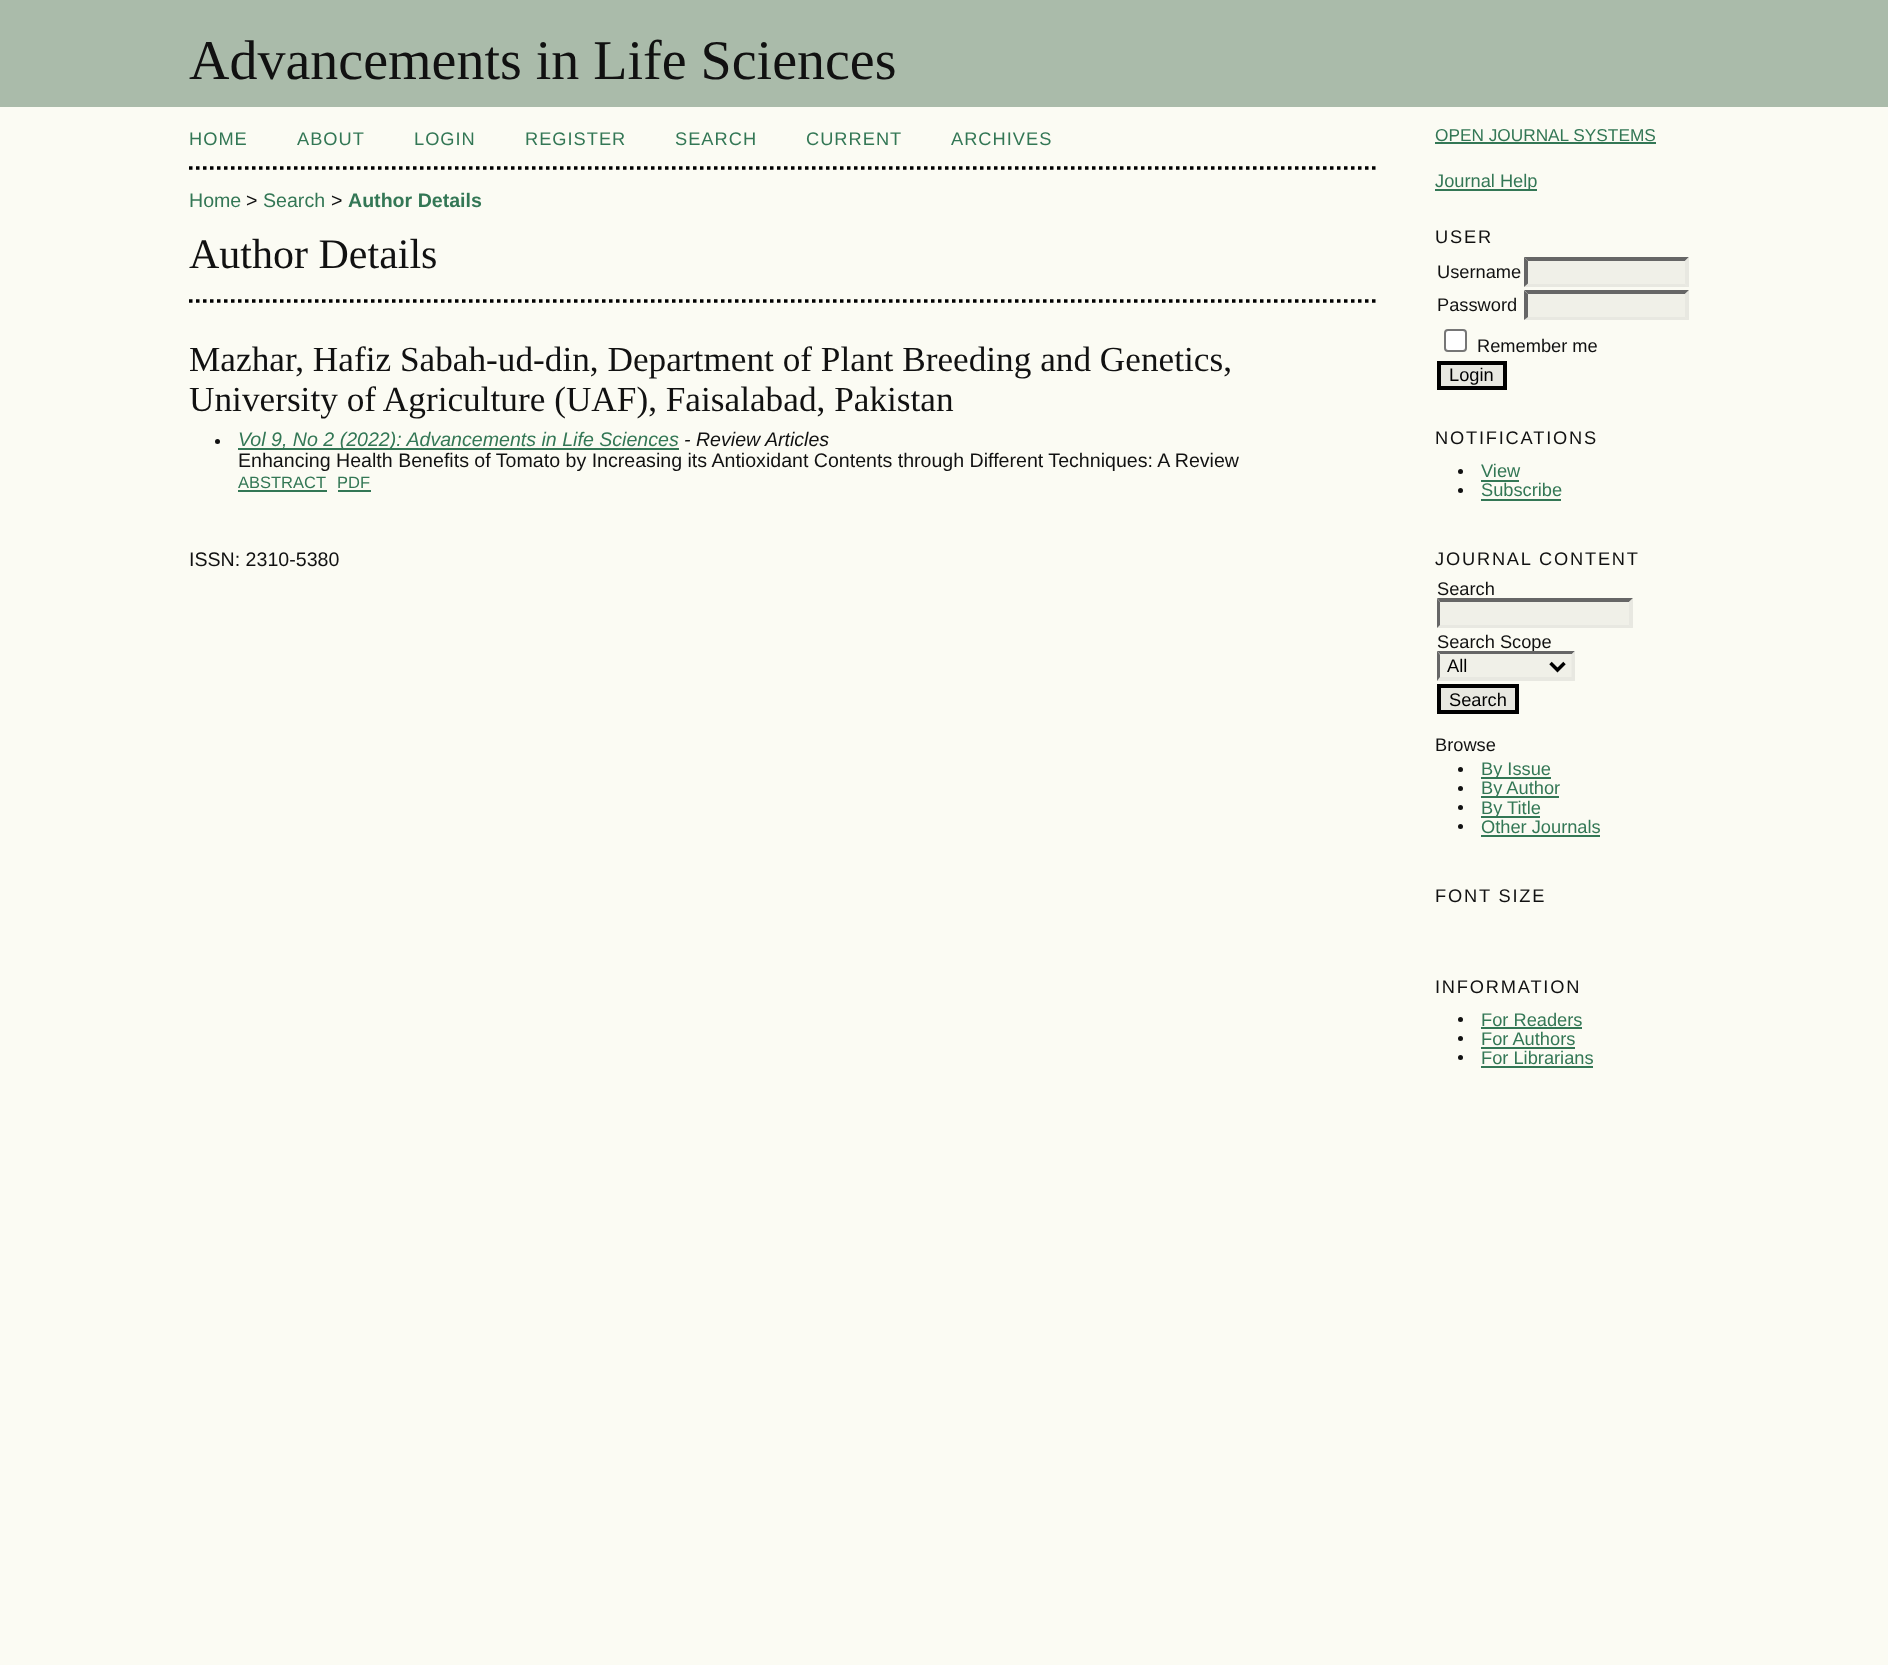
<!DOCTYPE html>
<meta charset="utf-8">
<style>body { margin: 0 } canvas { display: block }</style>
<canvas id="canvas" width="1888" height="1665"></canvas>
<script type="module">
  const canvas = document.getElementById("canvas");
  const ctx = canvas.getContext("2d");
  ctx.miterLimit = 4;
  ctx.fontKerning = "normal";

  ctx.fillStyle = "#fbfbf3";
  ctx.fillRect(0, 0, 1888, 1665);
  ctx.fillStyle = "#aabbaa";
  ctx.fillRect(0, 0, 1888, 107);
  ctx.font = "56px Liberation Serif";
  ctx.fillStyle = "#111111";
  ctx.fillText("Advancements in Life Sciences", 189, 79);
  ctx.beginPath();
  ctx.moveTo(189, 168);
  ctx.lineTo(1379, 168);
  ctx.strokeStyle = "#000000";
  ctx.lineWidth = 3.5;
  ctx.setLineDash([3.5, 3.5]);
  ctx.stroke();
  ctx.letterSpacing = "1px";
  ctx.font = "18.25px Liberation Sans";
  ctx.fillStyle = "#337755";
  ctx.fillText("HOME", 189, 145);
  ctx.fillText("ABOUT", 297, 145);
  ctx.fillText("LOGIN", 414, 145);
  ctx.fillText("REGISTER", 525, 145);
  ctx.fillText("SEARCH", 675, 145);
  ctx.fillText("CURRENT", 806, 145);
  ctx.fillText("ARCHIVES", 951, 145);
  ctx.letterSpacing = "0px";
  ctx.font = "19.6px Liberation Sans";
  ctx.fillText("Home", 189, 207);
  ctx.fillStyle = "#111111";
  ctx.fillText(">", 246, 207);
  ctx.fillStyle = "#337755";
  ctx.fillText("Search", 263, 207);
  ctx.fillStyle = "#111111";
  ctx.fillText(">", 331, 207);
  ctx.font = "bold 19.6px Liberation Sans";
  ctx.fillStyle = "#337755";
  ctx.fillText("Author Details", 348, 207);
  ctx.font = "42px Liberation Serif";
  ctx.fillStyle = "#111111";
  ctx.fillText("Author Details", 189, 268);
  ctx.beginPath();
  ctx.moveTo(189, 301);
  ctx.lineTo(1379, 301);
  ctx.stroke();
  ctx.font = "35.25px Liberation Serif";
  ctx.fillText("Mazhar, Hafiz Sabah-ud-din, Department of Plant Breeding and Genetics,", 189, 371);
  ctx.fillText("University of Agriculture (UAF), Faisalabad, Pakistan", 189, 411);
  ctx.beginPath();
  ctx.arc(217.5, 441.5, 2.5, 0, Math.PI * 2);
  ctx.fill();
  ctx.fillStyle = "#337755";
  ctx.fillRect(238, 448, 441, 2);
  ctx.font = "italic 19.6px Liberation Sans";
  ctx.fillText("Vol 9, No 2 (2022): Advancements in Life Sciences", 238, 446);
  ctx.fillStyle = "#111111";
  ctx.fillText("- Review Articles", 684, 446);
  ctx.font = "19.6px Liberation Sans";
  ctx.fillText("Enhancing Health Benefits of Tomato by Increasing its Antioxidant Contents through Different Techniques: A Review", 238, 467);
  ctx.font = "16.5px Liberation Sans";
  ctx.fillStyle = "#337755";
  ctx.fillText("ABSTRACT", 238, 488);
  ctx.fillRect(238, 490, 89, 2);
  ctx.fillText("PDF", 337, 488);
  ctx.fillRect(338, 490, 33, 2);
  ctx.font = "19.6px Liberation Sans";
  ctx.fillStyle = "#111111";
  ctx.fillText("ISSN: 2310-5380", 189, 566);
  ctx.font = "17.25px Liberation Sans";
  ctx.fillStyle = "#337755";
  ctx.fillText("OPEN JOURNAL SYSTEMS", 1435, 141);
  ctx.fillRect(1435, 142, 221, 2);
  ctx.fillRect(1435, 189, 102, 2);
  ctx.font = "18.25px Liberation Sans";
  ctx.fillText("Journal Help", 1435, 187);
  ctx.letterSpacing = "1.8px";
  ctx.fillStyle = "#111111";
  ctx.fillText("USER", 1435, 243);
  ctx.letterSpacing = "0px";
  ctx.fillText("Username", 1437, 278);
  ctx.fillStyle = "#f0f0e8";
  ctx.fillRect(1524, 257, 165, 30);
  ctx.fillStyle = "#666666";
  ctx.beginPath();
  ctx.moveTo(1524, 257);
  ctx.lineTo(1689, 257);
  ctx.lineTo(1685, 261);
  ctx.lineTo(1528, 261);
  ctx.closePath();
  ctx.fill();
  ctx.fillStyle = "#e8e8e1";
  ctx.beginPath();
  ctx.moveTo(1689, 257);
  ctx.lineTo(1689, 287);
  ctx.lineTo(1685, 283.5);
  ctx.lineTo(1685, 261);
  ctx.closePath();
  ctx.fill();
  ctx.beginPath();
  ctx.moveTo(1689, 287);
  ctx.lineTo(1524, 287);
  ctx.lineTo(1528, 284);
  ctx.lineTo(1685, 284);
  ctx.closePath();
  ctx.fill();
  ctx.fillStyle = "#666666";
  ctx.beginPath();
  ctx.moveTo(1524, 287);
  ctx.lineTo(1524, 257);
  ctx.lineTo(1528, 261);
  ctx.lineTo(1528, 283.5);
  ctx.closePath();
  ctx.fill();
  ctx.fillStyle = "#111111";
  ctx.fillText("Password", 1437, 311);
  ctx.fillStyle = "#f0f0e8";
  ctx.fillRect(1524, 291, 165, 29);
  ctx.fillStyle = "#666666";
  ctx.beginPath();
  ctx.moveTo(1524, 290);
  ctx.lineTo(1689, 290);
  ctx.lineTo(1685, 294);
  ctx.lineTo(1528, 294);
  ctx.closePath();
  ctx.fill();
  ctx.fillStyle = "#e8e8e1";
  ctx.beginPath();
  ctx.moveTo(1689, 290.5);
  ctx.lineTo(1689, 320);
  ctx.lineTo(1685, 317);
  ctx.lineTo(1685, 294);
  ctx.closePath();
  ctx.fill();
  ctx.beginPath();
  ctx.moveTo(1689, 320);
  ctx.lineTo(1524, 320);
  ctx.lineTo(1528, 317);
  ctx.lineTo(1685, 317);
  ctx.closePath();
  ctx.fill();
  ctx.fillStyle = "#666666";
  ctx.beginPath();
  ctx.moveTo(1524, 320);
  ctx.lineTo(1524, 290.5);
  ctx.lineTo(1528, 294);
  ctx.lineTo(1528, 317);
  ctx.closePath();
  ctx.fill();
  ctx.fillStyle = "#ffffff";
  ctx.beginPath();
  ctx.roundRect(1445, 330, 21, 21, 3);
  ctx.fill();
  ctx.strokeStyle = "#767676";
  ctx.lineWidth = 2;
  ctx.setLineDash([]);
  ctx.stroke();
  ctx.fillStyle = "#111111";
  ctx.fillText("Remember me", 1477, 352);
  ctx.fillStyle = "#e8e8e1";
  ctx.beginPath();
  ctx.rect(1439, 363, 66, 25);
  ctx.fill();
  ctx.strokeStyle = "#000000";
  ctx.lineWidth = 4;
  ctx.stroke();
  ctx.fillStyle = "#000000";
  ctx.fillText("Login", 1449, 381);
  ctx.letterSpacing = "1.8px";
  ctx.fillStyle = "#111111";
  ctx.fillText("NOTIFICATIONS", 1435, 444);
  ctx.beginPath();
  ctx.arc(1460.5, 471.5, 2.5, 0, Math.PI * 2);
  ctx.fill();
  ctx.letterSpacing = "0px";
  ctx.fillStyle = "#337755";
  ctx.fillText("View", 1481, 477);
  ctx.fillRect(1481, 480, 38, 2);
  ctx.fillStyle = "#111111";
  ctx.beginPath();
  ctx.arc(1460.5, 490.5, 2.5, 0, Math.PI * 2);
  ctx.fill();
  ctx.fillStyle = "#337755";
  ctx.fillText("Subscribe", 1481, 496);
  ctx.fillRect(1481, 499, 80, 2);
  ctx.letterSpacing = "1.8px";
  ctx.fillStyle = "#111111";
  ctx.fillText("JOURNAL CONTENT", 1435, 565);
  ctx.letterSpacing = "0px";
  ctx.fillText("Search", 1437, 595);
  ctx.fillStyle = "#f0f0e8";
  ctx.fillRect(1437, 599, 196, 29);
  ctx.fillStyle = "#666666";
  ctx.beginPath();
  ctx.moveTo(1437, 598);
  ctx.lineTo(1633, 598);
  ctx.lineTo(1629, 602);
  ctx.lineTo(1440, 602);
  ctx.closePath();
  ctx.fill();
  ctx.fillStyle = "#e8e8e1";
  ctx.beginPath();
  ctx.moveTo(1633, 598.5);
  ctx.lineTo(1633, 628);
  ctx.lineTo(1629, 625);
  ctx.lineTo(1629, 602);
  ctx.closePath();
  ctx.fill();
  ctx.beginPath();
  ctx.moveTo(1633, 628);
  ctx.lineTo(1437, 628);
  ctx.lineTo(1440, 625);
  ctx.lineTo(1629, 625);
  ctx.closePath();
  ctx.fill();
  ctx.fillStyle = "#666666";
  ctx.beginPath();
  ctx.moveTo(1437, 628);
  ctx.lineTo(1437, 598.5);
  ctx.lineTo(1440, 602);
  ctx.lineTo(1440, 625);
  ctx.closePath();
  ctx.fill();
  ctx.fillStyle = "#111111";
  ctx.fillText("Search Scope", 1437, 648);
  ctx.fillStyle = "#f0f0e8";
  ctx.fillRect(1437, 651, 138, 30);
  ctx.fillStyle = "#666666";
  ctx.beginPath();
  ctx.moveTo(1437, 651);
  ctx.lineTo(1575, 651);
  ctx.lineTo(1572, 654);
  ctx.lineTo(1440, 654);
  ctx.closePath();
  ctx.fill();
  ctx.fillStyle = "#e8e8e1";
  ctx.beginPath();
  ctx.moveTo(1575, 651);
  ctx.lineTo(1575, 681);
  ctx.lineTo(1571.5, 677);
  ctx.lineTo(1571.5, 654.5);
  ctx.closePath();
  ctx.fill();
  ctx.beginPath();
  ctx.moveTo(1575, 681);
  ctx.lineTo(1437, 681);
  ctx.lineTo(1440, 677);
  ctx.lineTo(1572, 677);
  ctx.closePath();
  ctx.fill();
  ctx.fillStyle = "#666666";
  ctx.beginPath();
  ctx.moveTo(1437, 681);
  ctx.lineTo(1437, 651);
  ctx.lineTo(1440, 654.5);
  ctx.lineTo(1440, 677);
  ctx.closePath();
  ctx.fill();
  ctx.beginPath();
  ctx.moveTo(1550.5, 663);
  ctx.lineTo(1557.5, 670);
  ctx.lineTo(1564.5, 663);
  ctx.lineWidth = 3.5;
  ctx.stroke();
  ctx.fillStyle = "#000000";
  ctx.fillText("All", 1447, 672);
  ctx.fillStyle = "#e8e8e1";
  ctx.beginPath();
  ctx.rect(1439, 686, 78, 26);
  ctx.fill();
  ctx.lineWidth = 4;
  ctx.stroke();
  ctx.fillStyle = "#000000";
  ctx.fillText("Search", 1449, 706);
  ctx.fillStyle = "#111111";
  ctx.fillText("Browse", 1435, 751);
  ctx.beginPath();
  ctx.arc(1460.5, 769.5, 2.5, 0, Math.PI * 2);
  ctx.fill();
  ctx.fillStyle = "#337755";
  ctx.fillRect(1481, 777, 70, 2);
  ctx.fillText("By Issue", 1481, 775);
  ctx.fillStyle = "#111111";
  ctx.beginPath();
  ctx.arc(1460.5, 788.5, 2.5, 0, Math.PI * 2);
  ctx.fill();
  ctx.fillStyle = "#337755";
  ctx.fillRect(1481, 796, 78, 2);
  ctx.fillText("By Author", 1481, 794);
  ctx.fillStyle = "#111111";
  ctx.beginPath();
  ctx.arc(1460.5, 807.5, 2.5, 0, Math.PI * 2);
  ctx.fill();
  ctx.fillStyle = "#337755";
  ctx.fillRect(1481, 816, 59, 2);
  ctx.fillText("By Title", 1481, 814);
  ctx.fillStyle = "#111111";
  ctx.beginPath();
  ctx.arc(1460.5, 826.5, 2.5, 0, Math.PI * 2);
  ctx.fill();
  ctx.fillStyle = "#337755";
  ctx.fillText("Other Journals", 1481, 833);
  ctx.fillRect(1481, 835, 119, 2);
  ctx.letterSpacing = "1.8px";
  ctx.fillStyle = "#111111";
  ctx.fillText("FONT SIZE", 1435, 902);
  ctx.fillText("INFORMATION", 1435, 993);
  ctx.beginPath();
  ctx.arc(1460.5, 1019.5, 2.5, 0, Math.PI * 2);
  ctx.fill();
  ctx.letterSpacing = "0px";
  ctx.fillStyle = "#337755";
  ctx.fillText("For Readers", 1481, 1026);
  ctx.fillRect(1481, 1027, 101, 2);
  ctx.fillStyle = "#111111";
  ctx.beginPath();
  ctx.arc(1460.5, 1038.5, 2.5, 0, Math.PI * 2);
  ctx.fill();
  ctx.fillStyle = "#337755";
  ctx.fillText("For Authors", 1481, 1045);
  ctx.fillRect(1481, 1047, 94, 2);
  ctx.fillStyle = "#111111";
  ctx.beginPath();
  ctx.arc(1460.5, 1057.5, 2.5, 0, Math.PI * 2);
  ctx.fill();
  ctx.fillStyle = "#337755";
  ctx.fillText("For Librarians", 1481, 1064);
  ctx.fillRect(1481, 1066, 112, 2);
</script>
